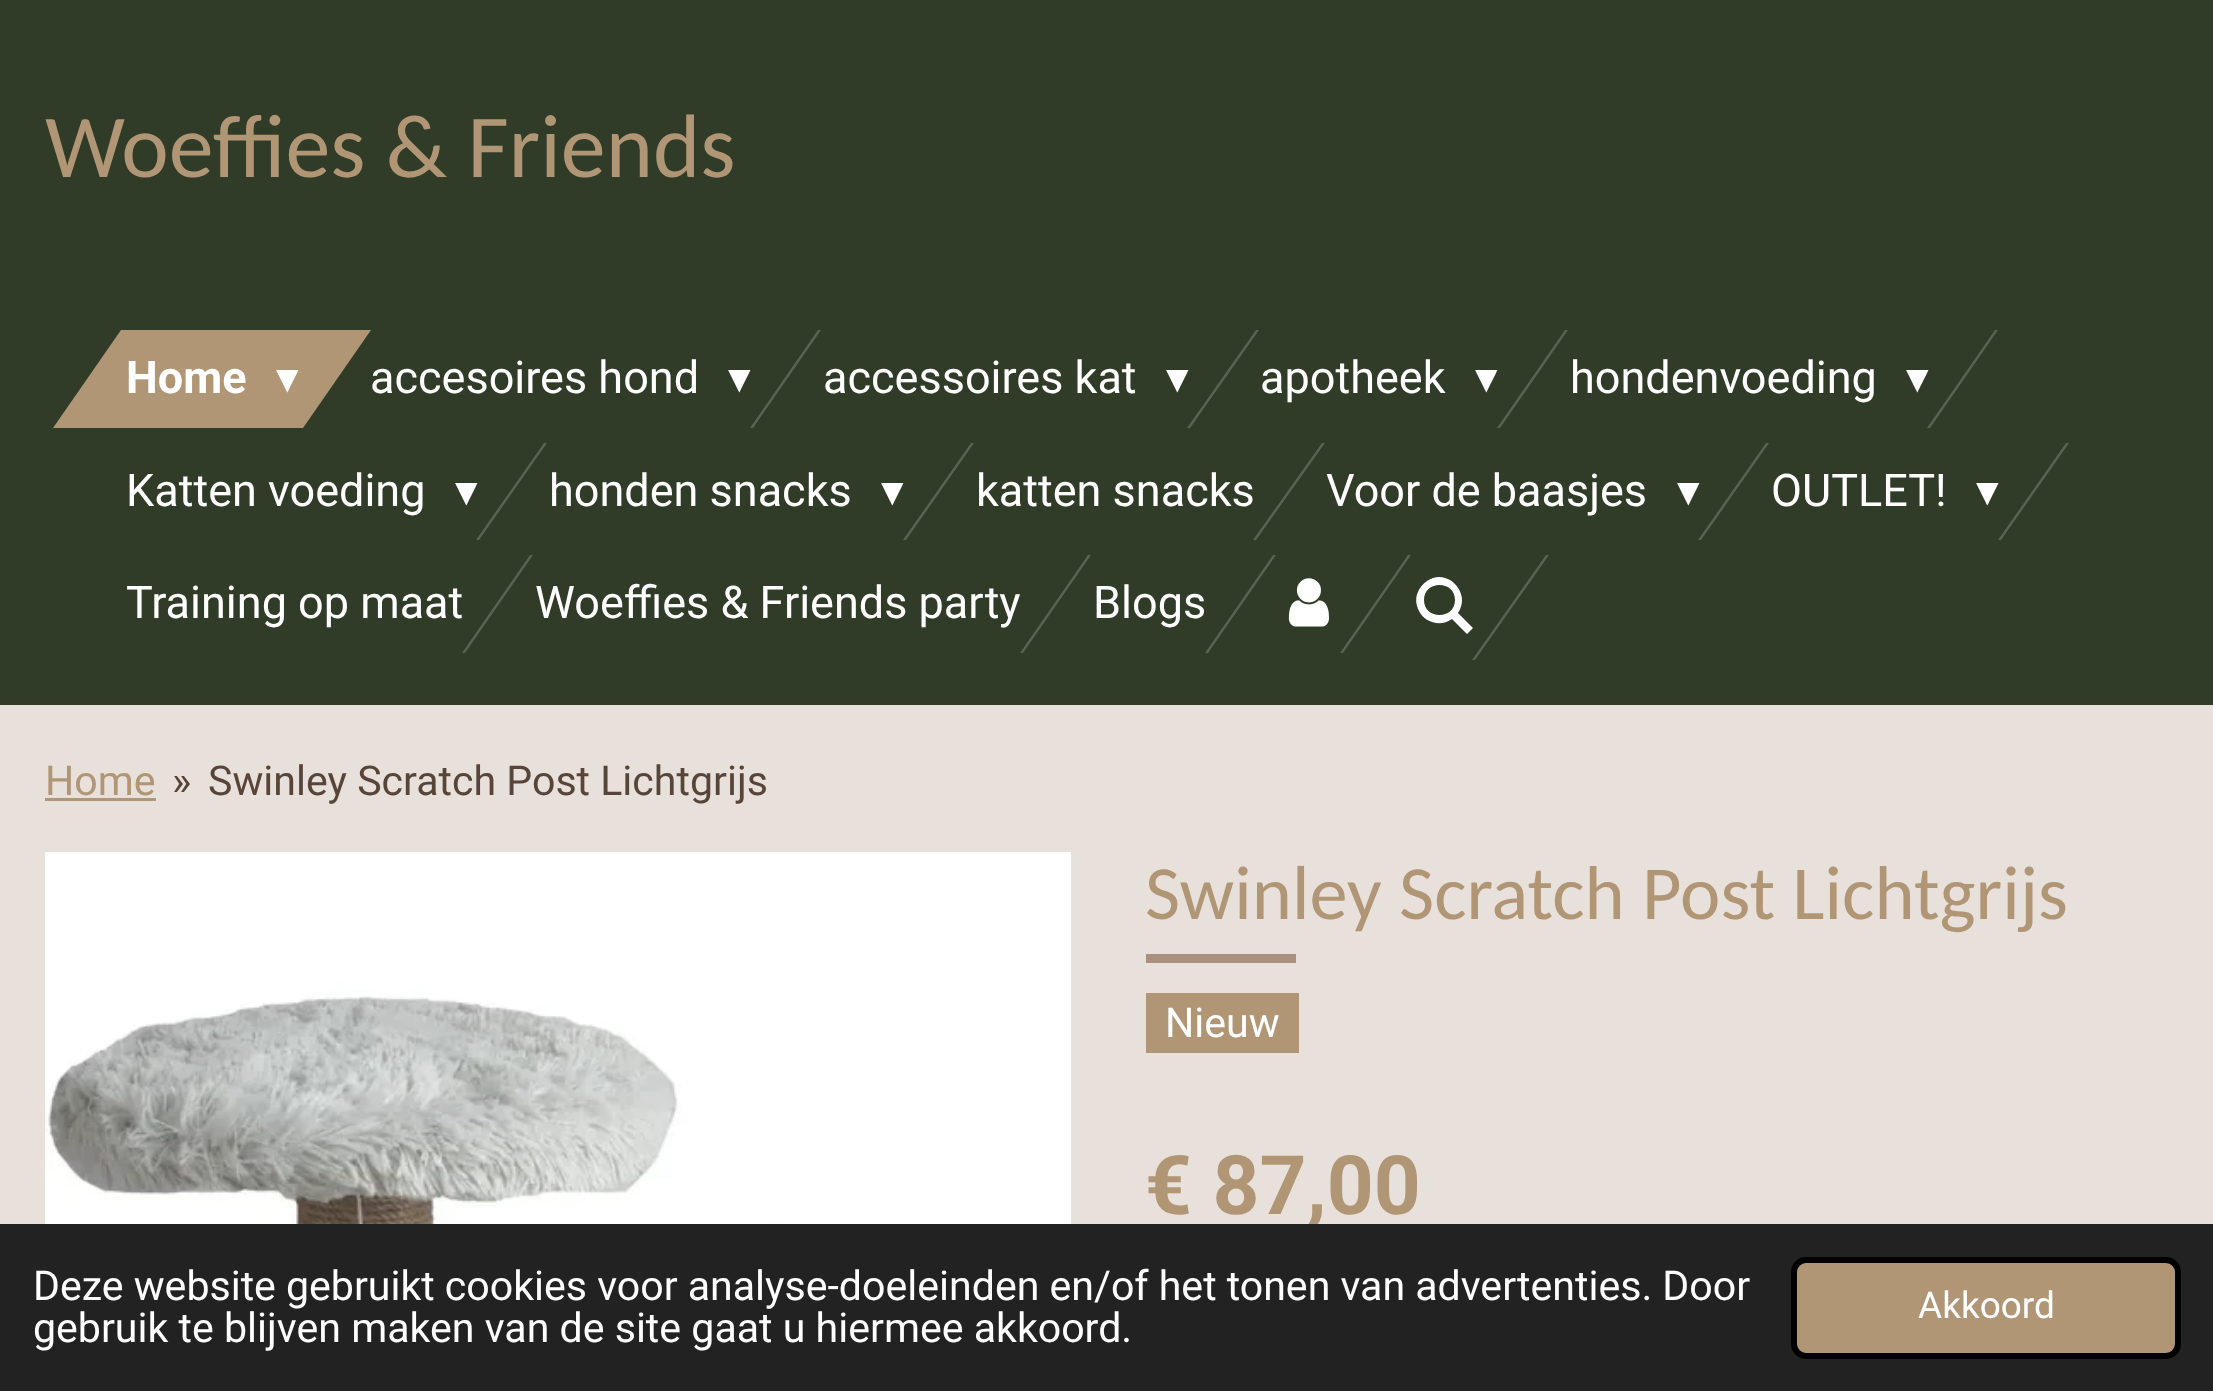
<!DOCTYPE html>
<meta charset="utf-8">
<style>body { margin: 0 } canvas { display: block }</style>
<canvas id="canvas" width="2213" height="1391"></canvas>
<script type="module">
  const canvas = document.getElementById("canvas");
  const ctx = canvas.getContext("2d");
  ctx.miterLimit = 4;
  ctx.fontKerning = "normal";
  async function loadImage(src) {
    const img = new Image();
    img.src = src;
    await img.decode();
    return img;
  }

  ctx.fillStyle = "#e8e0db";
  ctx.fillRect(0, 0, 2213, 1391);
  ctx.fillStyle = "#303c27";
  ctx.fillRect(0, 0, 2213, 705);
  ctx.font = "90px Carlito";
  ctx.fillStyle = "#b19676";
  ctx.fillText("Woeffies & Friends", 45, 177);
  ctx.beginPath();
  ctx.moveTo(121, 330);
  ctx.lineTo(371, 330);
  ctx.lineTo(303, 428);
  ctx.lineTo(53, 428);
  ctx.closePath();
  ctx.fill();
  ctx.font = "bold 45px Roboto";
  ctx.fillStyle = "#ffffff";
  ctx.fillText("Home", 126, 393);
  ctx.font = "45px DejaVu Sans";
  ctx.fillText("▾", 276, 393);
  ctx.font = "45px Roboto";
  ctx.fillText("accesoires hond", 370, 393);
  ctx.fillStyle = "#596352";
  ctx.beginPath();
  ctx.moveTo(818, 330);
  ctx.lineTo(821, 330);
  ctx.lineTo(753, 428);
  ctx.lineTo(750, 428);
  ctx.closePath();
  ctx.fill();
  ctx.font = "45px DejaVu Sans";
  ctx.fillStyle = "#ffffff";
  ctx.fillText("▾", 728, 393);
  ctx.font = "45px Roboto";
  ctx.fillText("accessoires kat", 823, 393);
  ctx.fillStyle = "#596352";
  ctx.beginPath();
  ctx.moveTo(1256, 330);
  ctx.lineTo(1259, 330);
  ctx.lineTo(1190, 428);
  ctx.lineTo(1187, 428);
  ctx.closePath();
  ctx.fill();
  ctx.font = "45px DejaVu Sans";
  ctx.fillStyle = "#ffffff";
  ctx.fillText("▾", 1166, 393);
  ctx.font = "45px Roboto";
  ctx.fillText("apotheek", 1260, 393);
  ctx.fillStyle = "#596352";
  ctx.beginPath();
  ctx.moveTo(1565, 330);
  ctx.lineTo(1568, 330);
  ctx.lineTo(1500, 428);
  ctx.lineTo(1497, 428);
  ctx.closePath();
  ctx.fill();
  ctx.font = "45px DejaVu Sans";
  ctx.fillStyle = "#ffffff";
  ctx.fillText("▾", 1475, 393);
  ctx.font = "45px Roboto";
  ctx.fillText("hondenvoeding", 1570, 393);
  ctx.fillStyle = "#596352";
  ctx.beginPath();
  ctx.moveTo(1995, 330);
  ctx.lineTo(1998, 330);
  ctx.lineTo(1930, 428);
  ctx.lineTo(1927, 428);
  ctx.closePath();
  ctx.fill();
  ctx.font = "45px DejaVu Sans";
  ctx.fillStyle = "#ffffff";
  ctx.fillText("▾", 1906, 393);
  ctx.font = "45px Roboto";
  ctx.fillText("Katten voeding", 126, 506);
  ctx.fillStyle = "#596352";
  ctx.beginPath();
  ctx.moveTo(544, 443);
  ctx.lineTo(547, 443);
  ctx.lineTo(479, 540);
  ctx.lineTo(476, 540);
  ctx.closePath();
  ctx.fill();
  ctx.font = "45px DejaVu Sans";
  ctx.fillStyle = "#ffffff";
  ctx.fillText("▾", 455, 506);
  ctx.font = "45px Roboto";
  ctx.fillText("honden snacks", 549, 506);
  ctx.fillStyle = "#596352";
  ctx.beginPath();
  ctx.moveTo(971, 443);
  ctx.lineTo(974, 443);
  ctx.lineTo(906, 540);
  ctx.lineTo(903, 540);
  ctx.closePath();
  ctx.fill();
  ctx.font = "45px DejaVu Sans";
  ctx.fillStyle = "#ffffff";
  ctx.fillText("▾", 881, 506);
  ctx.font = "45px Roboto";
  ctx.fillText("katten snacks", 976, 506);
  ctx.fillStyle = "#596352";
  ctx.beginPath();
  ctx.moveTo(1322, 443);
  ctx.lineTo(1325, 443);
  ctx.lineTo(1256, 540);
  ctx.lineTo(1253, 540);
  ctx.closePath();
  ctx.fill();
  ctx.fillStyle = "#ffffff";
  ctx.fillText("Voor de baasjes", 1326, 506);
  ctx.fillStyle = "#596352";
  ctx.beginPath();
  ctx.moveTo(1766, 443);
  ctx.lineTo(1769, 443);
  ctx.lineTo(1701, 540);
  ctx.lineTo(1698, 540);
  ctx.closePath();
  ctx.fill();
  ctx.font = "45px DejaVu Sans";
  ctx.fillStyle = "#ffffff";
  ctx.fillText("▾", 1677, 506);
  ctx.font = "45px Roboto";
  ctx.fillText("OUTLET!", 1771, 506);
  ctx.fillStyle = "#596352";
  ctx.beginPath();
  ctx.moveTo(2066, 443);
  ctx.lineTo(2069, 443);
  ctx.lineTo(2001, 540);
  ctx.lineTo(1998, 540);
  ctx.closePath();
  ctx.fill();
  ctx.font = "45px DejaVu Sans";
  ctx.fillStyle = "#ffffff";
  ctx.fillText("▾", 1976, 506);
  ctx.font = "45px Roboto";
  ctx.fillText("Training op maat", 126, 618);
  ctx.fillStyle = "#596352";
  ctx.beginPath();
  ctx.moveTo(530, 555);
  ctx.lineTo(533, 555);
  ctx.lineTo(465, 653);
  ctx.lineTo(462, 653);
  ctx.closePath();
  ctx.fill();
  ctx.beginPath();
  ctx.moveTo(1088, 555);
  ctx.lineTo(1091, 555);
  ctx.lineTo(1023, 653);
  ctx.lineTo(1020, 653);
  ctx.closePath();
  ctx.fill();
  ctx.fillStyle = "#ffffff";
  ctx.fillText("Woeffies & Friends party", 535, 618);
  ctx.fillText("Blogs", 1093, 618);
  ctx.fillStyle = "#596352";
  ctx.beginPath();
  ctx.moveTo(1273, 555);
  ctx.lineTo(1276, 555);
  ctx.lineTo(1208, 653);
  ctx.lineTo(1205, 653);
  ctx.closePath();
  ctx.fill();
  ctx.drawImage(await loadImage("img1.png"), 1288, 578, 41, 49);
  ctx.beginPath();
  ctx.moveTo(1408, 555);
  ctx.lineTo(1411, 555);
  ctx.lineTo(1343, 653);
  ctx.lineTo(1340, 653);
  ctx.closePath();
  ctx.fill();
  ctx.beginPath();
  ctx.moveTo(1546, 555);
  ctx.lineTo(1549, 555);
  ctx.lineTo(1475, 660);
  ctx.lineTo(1472, 660);
  ctx.closePath();
  ctx.fill();
  ctx.fillStyle = "#ffffff";
  ctx.beginPath();
  ctx.moveTo(1458, 613);
  ctx.lineTo(1473, 628);
  ctx.lineTo(1467, 634);
  ctx.lineTo(1452, 619);
  ctx.bezierCurveTo(1441, 627, 1425, 623, 1419, 611);
  ctx.bezierCurveTo(1416, 605, 1415, 598, 1418, 592);
  ctx.bezierCurveTo(1420, 587, 1423, 584, 1427, 581);
  ctx.bezierCurveTo(1447, 567, 1472, 593, 1458, 613);
  ctx.closePath();
  ctx.moveTo(1455, 600);
  ctx.bezierCurveTo(1455, 580, 1424, 580, 1424, 600);
  ctx.bezierCurveTo(1424, 620, 1455, 620, 1455, 600);
  ctx.closePath();
  ctx.fill();
  ctx.font = "41.1px Roboto";
  ctx.fillStyle = "#b19676";
  ctx.fillText("Home", 45, 795);
  ctx.fillRect(45, 798, 111, 3);
  ctx.fillStyle = "#584539";
  ctx.fillText("»", 172, 795);
  ctx.fillText("Swinley Scratch Post Lichtgrijs", 208, 795);
  ctx.drawImage(await loadImage("img2.png"), 45, 852, 1026, 372);
  ctx.font = "76.5px Carlito";
  ctx.fillStyle = "#b19676";
  ctx.fillText("Swinley Scratch Post Lichtgrijs", 1145, 919);
  ctx.fillStyle = "#ac907e";
  ctx.fillRect(1146, 954, 150, 9);
  ctx.fillStyle = "#b19676";
  ctx.fillRect(1146, 993, 153, 60);
  ctx.font = "41.1px Roboto";
  ctx.fillStyle = "#ffffff";
  ctx.fillText("Nieuw", 1165, 1037);
  ctx.font = "bold 82px Roboto";
  ctx.fillStyle = "#b19676";
  ctx.fillText("€ 87,00", 1145, 1214);
  ctx.fillStyle = "#222222";
  ctx.fillRect(0, 1224, 2213, 167);
  ctx.wordSpacing = "-0.1px";
  ctx.font = "41.1px Roboto";
  ctx.fillStyle = "#ffffff";
  ctx.fillText("Deze website gebruikt cookies voor analyse-doeleinden en/of het tonen van advertenties. Door", 33, 1300);
  ctx.wordSpacing = "0px";
  ctx.fillText("gebruik te blijven maken van de site gaat u hiermee akkoord.", 33, 1342);
  ctx.fillStyle = "#b19676";
  ctx.beginPath();
  ctx.roundRect(1794, 1260, 384, 96, 12);
  ctx.fill();
  ctx.strokeStyle = "#000000";
  ctx.lineWidth = 6;
  ctx.stroke();
  ctx.font = "37px Roboto";
  ctx.fillStyle = "#ffffff";
  ctx.fillText("Akkoord", 1918, 1318);
</script>
